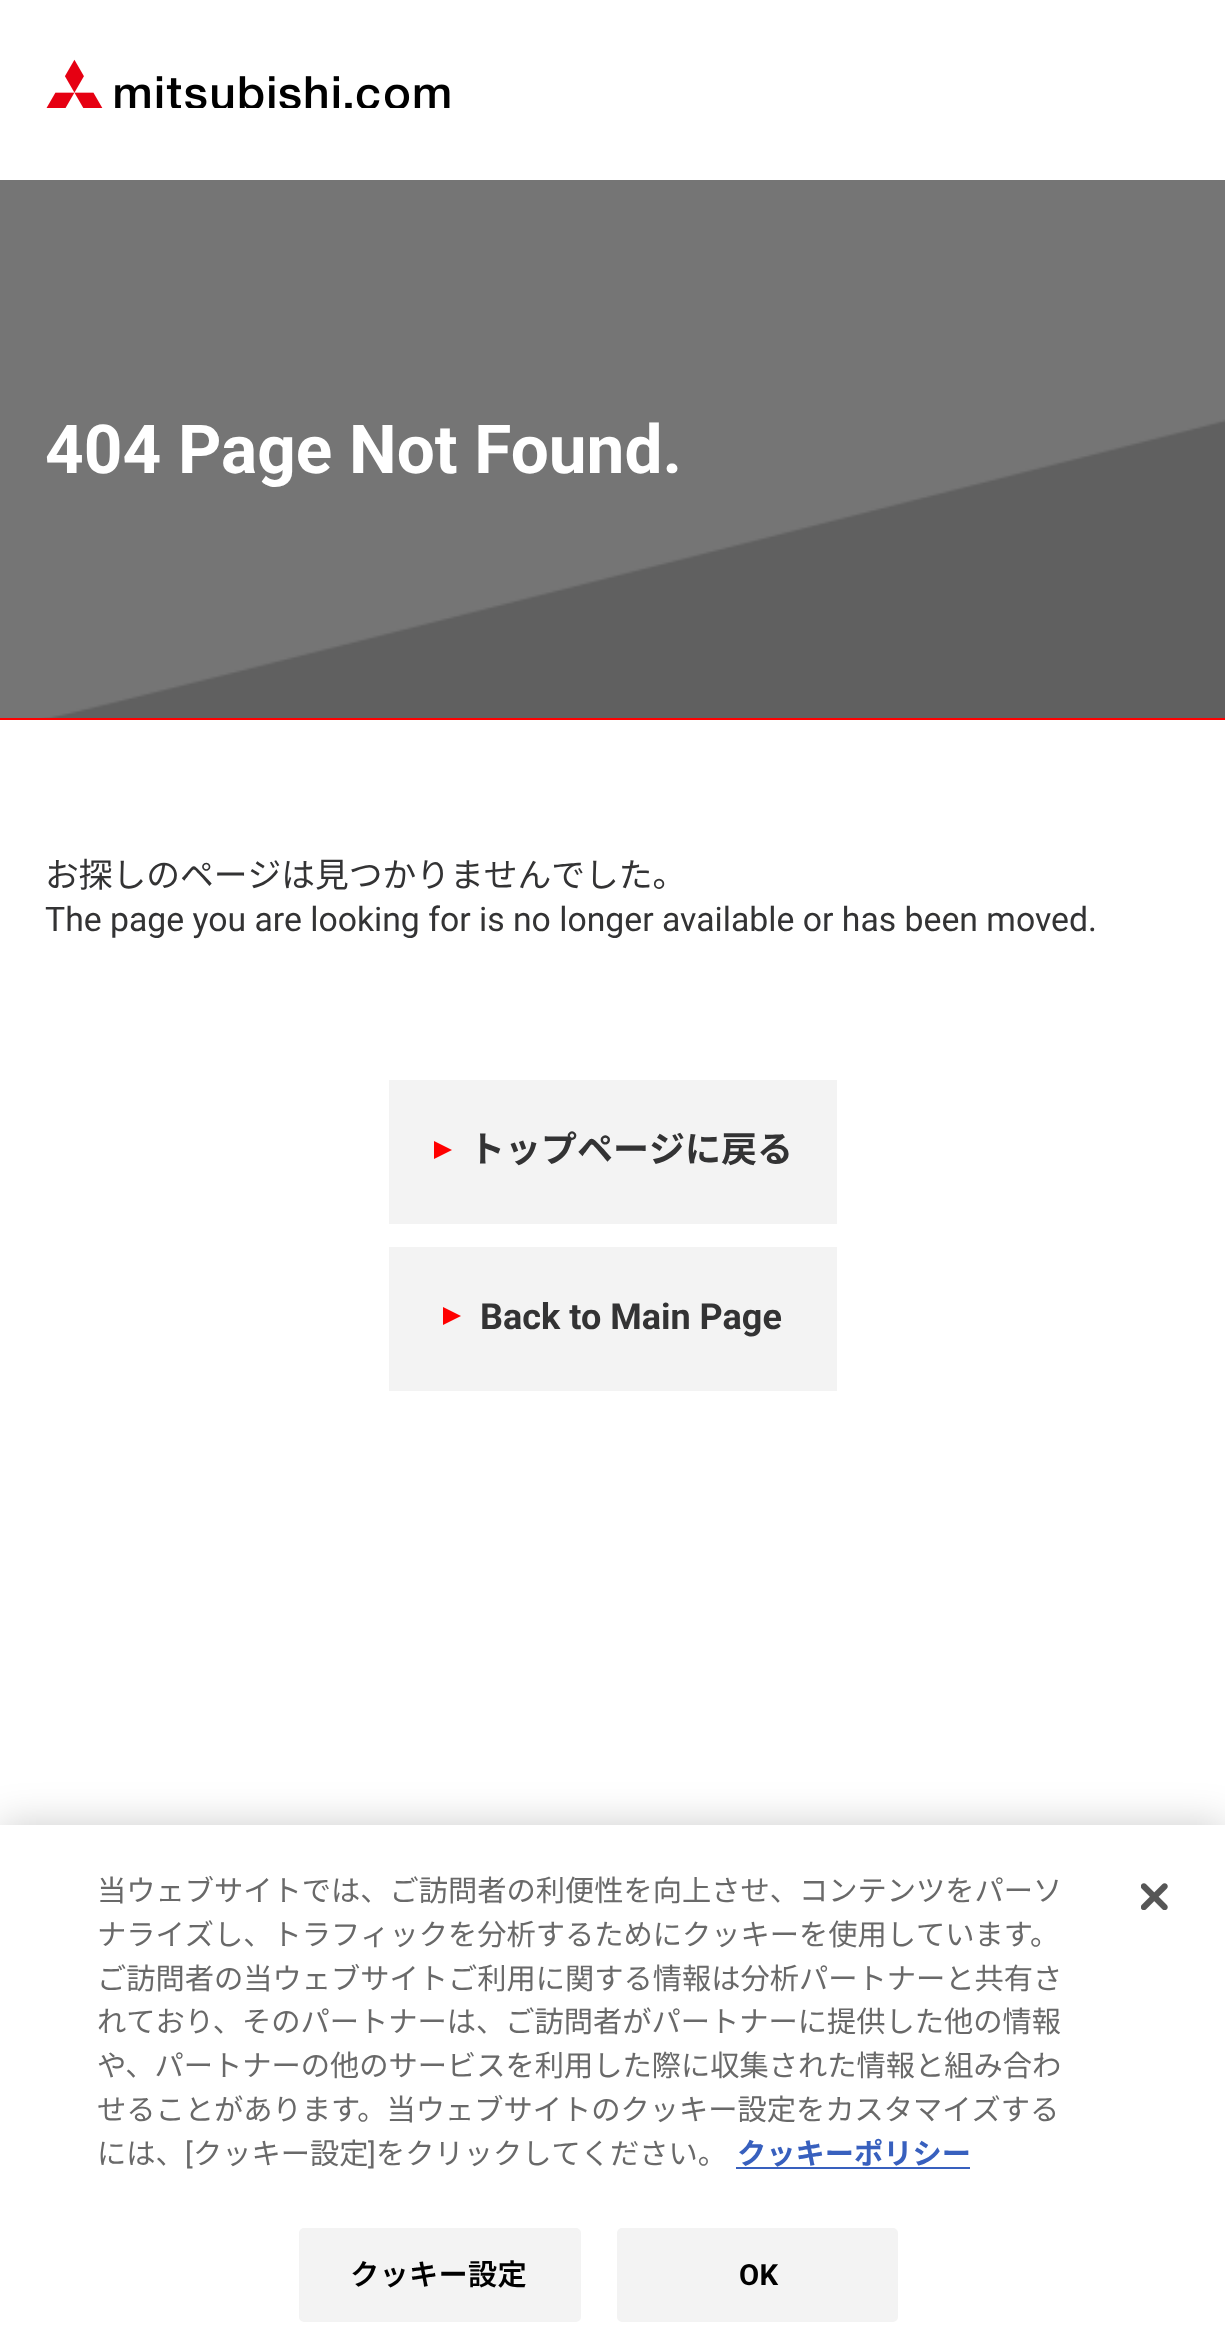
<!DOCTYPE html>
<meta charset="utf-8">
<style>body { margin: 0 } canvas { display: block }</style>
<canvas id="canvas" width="1225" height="2344"></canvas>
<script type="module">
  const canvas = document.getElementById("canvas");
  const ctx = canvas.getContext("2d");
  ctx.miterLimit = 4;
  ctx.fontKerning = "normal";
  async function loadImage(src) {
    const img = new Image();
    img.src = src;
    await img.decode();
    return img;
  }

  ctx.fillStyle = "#ffffff";
  ctx.fillRect(0, 0, 1225, 2344);
  ctx.drawImage(await loadImage("img1.png"), 46, 59, 404, 49);
  ctx.drawImage(await loadImage("img2.png"), 0, 180, 1225, 538);
  ctx.font = "bold 67.5px Roboto";
  ctx.fillText("404 Page Not Found.", 45, 473);
  ctx.fillStyle = "#ff0000";
  ctx.fillRect(0, 718, 1225, 2);
  ctx.font = "33.75px Noto Sans JP";
  ctx.fillStyle = "#333334";
  ctx.fillText("お探しのページは見つかりませんでした。", 45, 887);
  ctx.font = "33.75px Roboto";
  ctx.fillText("The page you are looking for is no longer available or has been moved.", 45, 931);
  ctx.fillStyle = "#f3f3f3";
  ctx.fillRect(389, 1080, 448, 144);
  ctx.fillStyle = "#ff0000";
  ctx.beginPath();
  ctx.moveTo(434, 1141);
  ctx.lineTo(434, 1159);
  ctx.lineTo(452, 1150);
  ctx.closePath();
  ctx.fill();
  ctx.font = "bold 36px Noto Sans JP";
  ctx.fillStyle = "#333334";
  ctx.fillText("トップページに戻る", 469, 1162);
  ctx.fillStyle = "#f3f3f3";
  ctx.fillRect(389, 1247, 448, 144);
  ctx.fillStyle = "#ff0000";
  ctx.beginPath();
  ctx.moveTo(443, 1307);
  ctx.lineTo(443, 1325);
  ctx.lineTo(461, 1316);
  ctx.closePath();
  ctx.fill();
  ctx.font = "bold 36px Roboto";
  ctx.fillStyle = "#333334";
  ctx.fillText("Back to Main Page", 480, 1329);
  ctx.fillStyle = "rgba(0, 0, 0, 0.2)";
  ctx.filter = "blur(20px)";
  ctx.beginPath();
  ctx.rect(0, 1825, 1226, 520);
  ctx.fill();
  ctx.filter = "none";
  ctx.fillStyle = "#ffffff";
  ctx.fillRect(0, 1825, 1225, 519);
  ctx.font = "29.25px Noto Sans JP";
  ctx.fillStyle = "#696969";
  ctx.fillText("当ウェブサイトでは、ご訪問者の利便性を向上させ、コンテンツをパーソ", 97, 1901);
  ctx.fillText("ナライズし、トラフィックを分析するためにクッキーを使用しています。", 97, 1945);
  ctx.fillText("ご訪問者の当ウェブサイトご利用に関する情報は分析パートナーと共有さ", 97, 1989);
  ctx.fillText("れており、そのパートナーは、ご訪問者がパートナーに提供した他の情報", 97, 2032);
  ctx.fillText("や、パートナーの他のサービスを利用した際に収集された情報と組み合わ", 97, 2076);
  ctx.fillText("せることがあります。当ウェブサイトのクッキー設定をカスタマイズする", 97, 2120);
  ctx.fillText("には、", 97, 2164);
  ctx.font = "29.25px Roboto";
  ctx.fillText("[", 185, 2164);
  ctx.font = "29.25px Noto Sans JP";
  ctx.fillText("クッキー設定", 193, 2164);
  ctx.font = "29.25px Roboto";
  ctx.fillText("]", 368, 2164);
  ctx.font = "29.25px Noto Sans JP";
  ctx.fillText("をクリックしてください。", 376, 2164);
  ctx.font = "bold 29.25px Noto Sans JP";
  ctx.fillStyle = "#3860be";
  ctx.fillText("クッキーポリシー", 737, 2164);
  ctx.fillRect(736, 2167, 234, 2);
  ctx.fillStyle = "#f3f3f3";
  ctx.beginPath();
  ctx.roundRect(300, 2229, 280, 92, 4);
  ctx.fill();
  ctx.strokeStyle = "#f3f3f3";
  ctx.lineWidth = 2;
  ctx.stroke();
  ctx.letterSpacing = "0.25px";
  ctx.font = "600 29.25px Noto Sans JP";
  ctx.fillStyle = "#000000";
  ctx.fillText("クッキー設定", 350, 2285);
  ctx.fillStyle = "#f3f3f3";
  ctx.beginPath();
  ctx.roundRect(618, 2229, 279, 92, 4);
  ctx.fill();
  ctx.stroke();
  ctx.font = "bold 29.25px Roboto";
  ctx.fillStyle = "#000000";
  ctx.fillText("OK", 739, 2285);
  ctx.drawImage(await loadImage("img3.png"), 1141, 1883, 27, 27);
</script>
